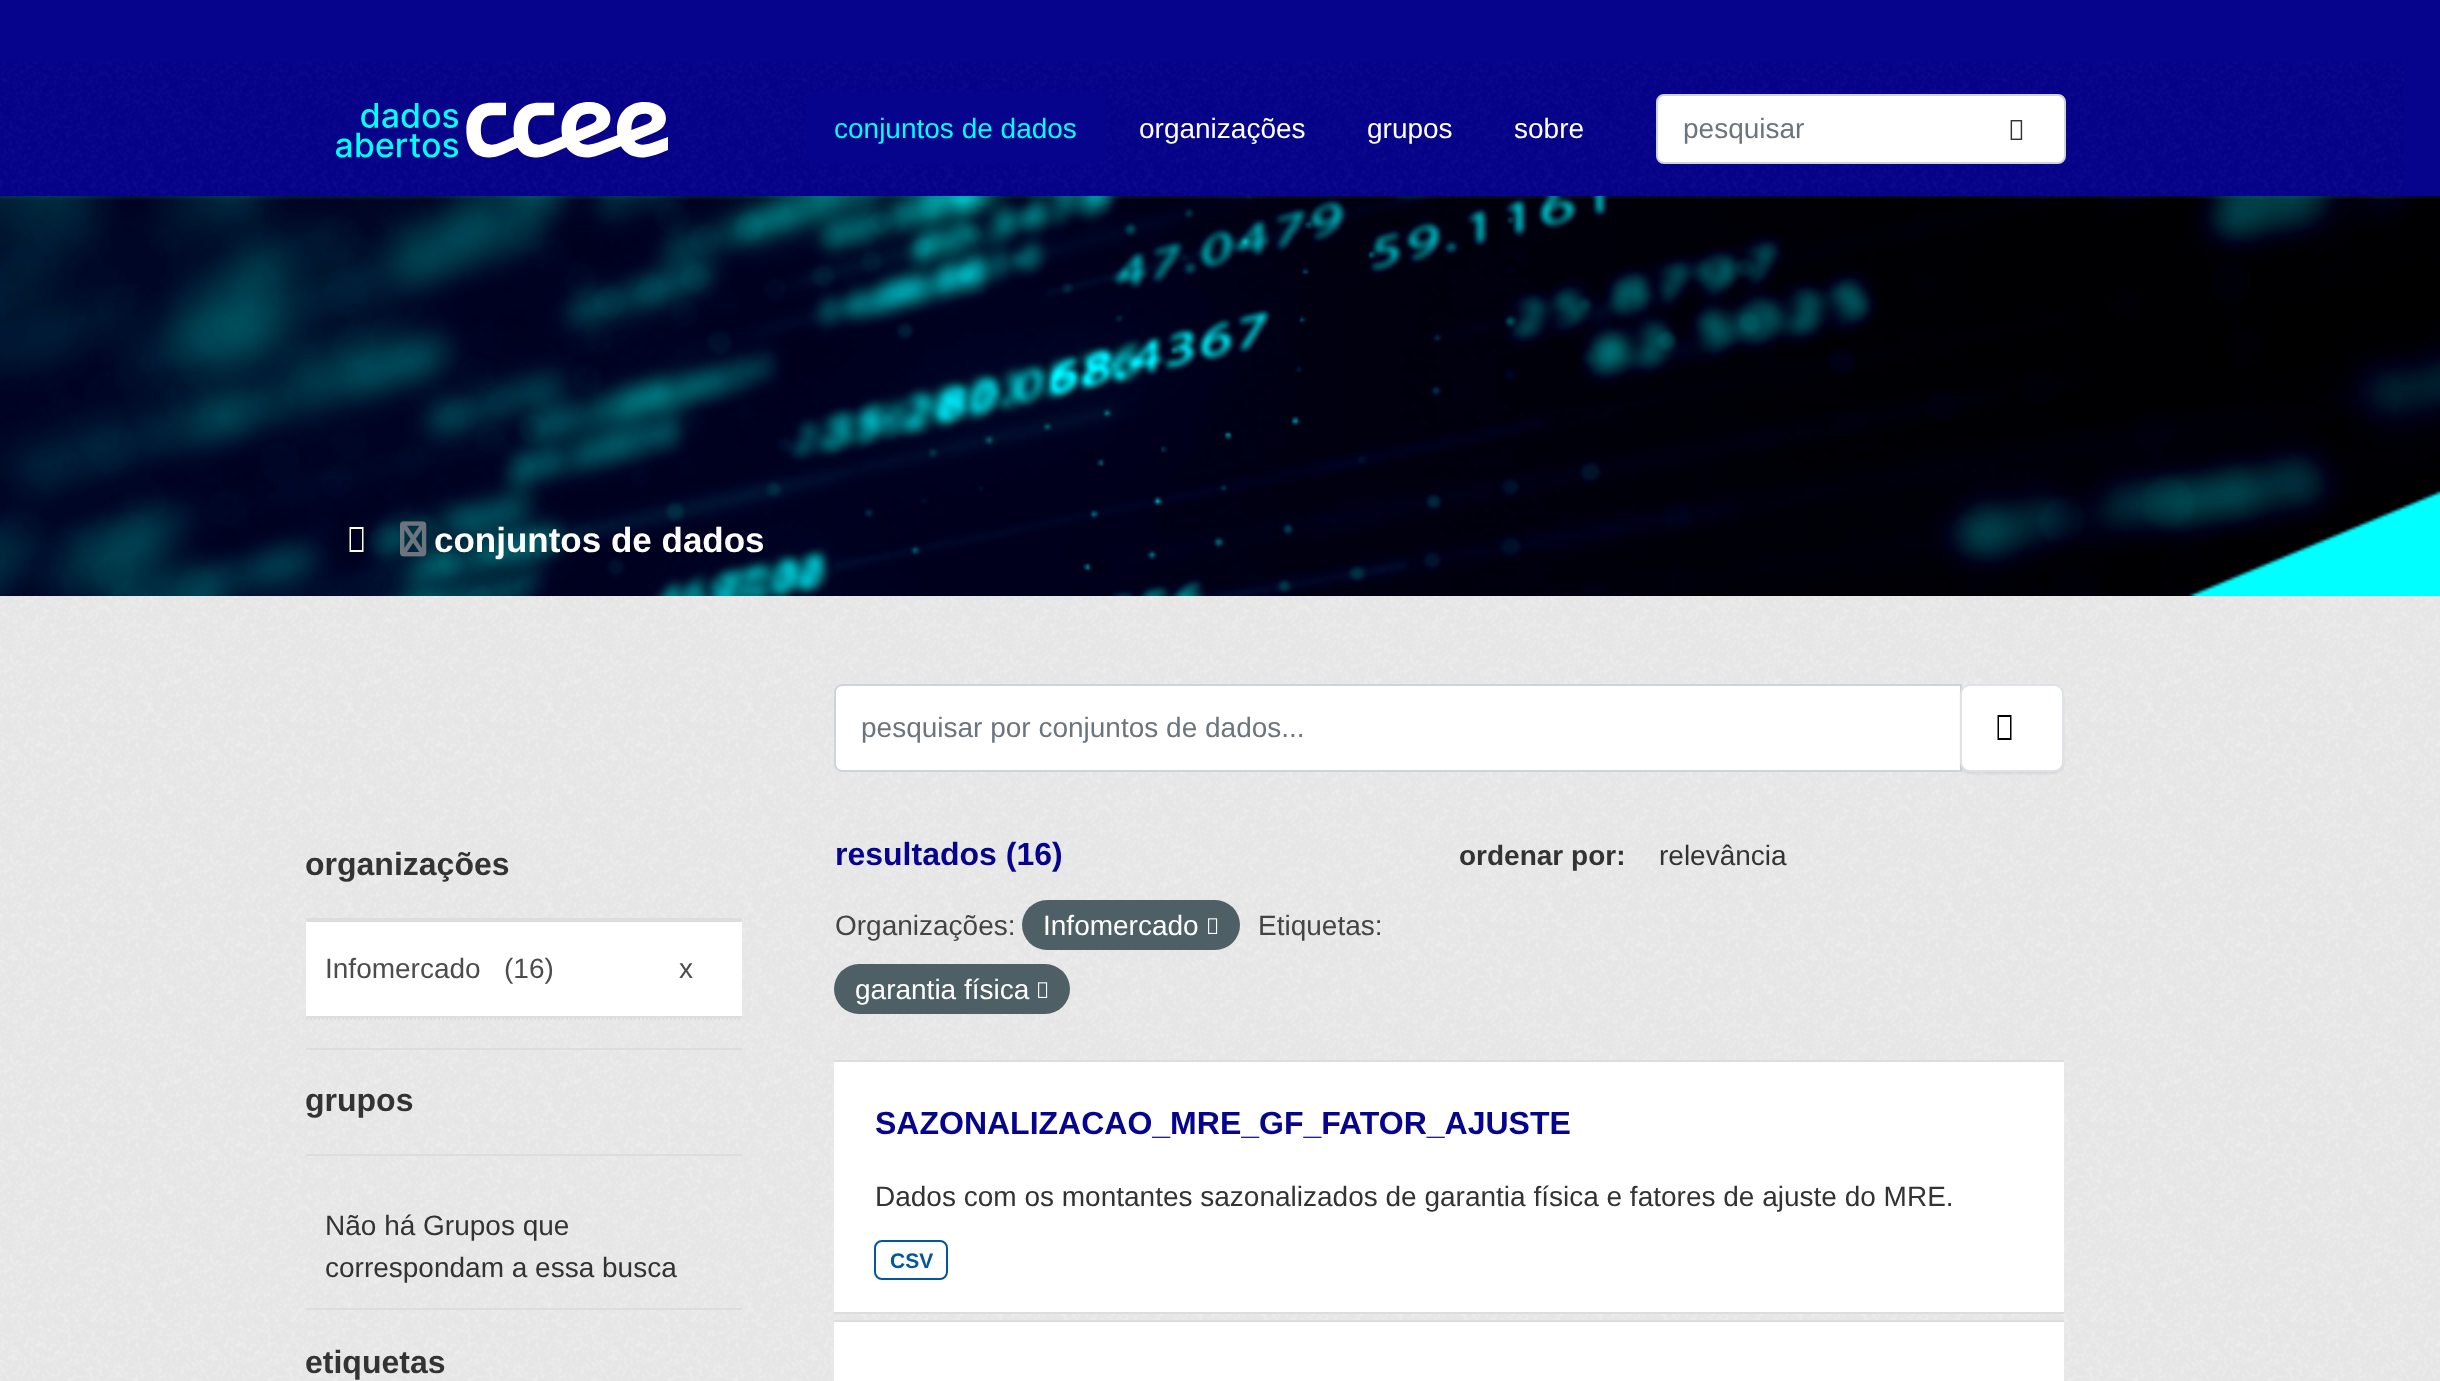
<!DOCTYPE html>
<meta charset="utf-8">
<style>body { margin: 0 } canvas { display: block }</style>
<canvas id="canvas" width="2440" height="1381"></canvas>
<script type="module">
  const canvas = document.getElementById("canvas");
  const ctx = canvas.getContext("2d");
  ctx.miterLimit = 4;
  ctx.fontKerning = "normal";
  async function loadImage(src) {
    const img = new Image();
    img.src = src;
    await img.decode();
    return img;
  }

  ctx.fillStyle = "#06038d";
  ctx.fillRect(0, 0, 2440, 1381);
  ctx.drawImage(await loadImage("img1.png"), 0, 62, 2404, 134);
  ctx.drawImage(await loadImage("img2.png"), 336, 102, 332, 56);
  ctx.beginPath();
  ctx.roundRect(806, 92, 300, 72, 10);
  ctx.fill();
  ctx.font = "28px Liberation Sans";
  ctx.fillStyle = "#00ffff";
  ctx.fillText("conjuntos de dados", 834, 138);
  ctx.fillStyle = "#ffffff";
  ctx.fillText("organizações", 1139, 138);
  ctx.fillText("grupos", 1367, 138);
  ctx.fillText("sobre", 1514, 138);
  ctx.beginPath();
  ctx.roundRect(1657, 95, 408, 68, 7);
  ctx.fill();
  ctx.strokeStyle = "#ced4da";
  ctx.lineWidth = 2;
  ctx.stroke();
  ctx.fillStyle = "#6c757d";
  ctx.fillText("pesquisar", 1683, 138);
  ctx.drawImage(await loadImage("img3.png"), 2010, 120, 13, 20);
  ctx.drawImage(await loadImage("img4.png"), 0, 196, 2440, 400);
  ctx.fillStyle = "#ffffff";
  ctx.beginPath();
  ctx.moveTo(349.5, 552);
  ctx.lineTo(349.5, 527);
  ctx.lineTo(363.5, 527);
  ctx.lineTo(363.5, 552);
  ctx.closePath();
  ctx.moveTo(351, 550);
  ctx.lineTo(362, 550);
  ctx.lineTo(362, 529);
  ctx.lineTo(351, 529);
  ctx.closePath();
  ctx.fill();
  ctx.drawImage(await loadImage("img5.png"), 400, 521, 27, 36);
  ctx.font = "bold 35px Liberation Sans";
  ctx.fillText("conjuntos de dados", 434, 552);
  ctx.fillStyle = "#eeeeee";
  ctx.fillRect(0, 596, 2440, 785);
  ctx.drawImage(await loadImage("img6.png"), 0, 596, 2440, 785);
  ctx.fillStyle = "#dddddd";
  ctx.fillRect(306, 918, 436, 4);
  ctx.font = "bold 32px Liberation Sans";
  ctx.fillStyle = "#333333";
  ctx.fillText("organizações", 305, 875);
  ctx.fillStyle = "#ffffff";
  ctx.fillRect(306, 922, 436, 94);
  ctx.fillStyle = "#dddddd";
  ctx.fillRect(306, 1016, 436, 2);
  ctx.font = "28px Liberation Sans";
  ctx.fillStyle = "#4c4c4c";
  ctx.fillText("Infomercado", 325, 978);
  ctx.fillText("(16)", 504, 978);
  ctx.fillText("x", 679, 978);
  ctx.beginPath();
  ctx.moveTo(306, 1019);
  ctx.lineTo(742, 1019);
  ctx.strokeStyle = "#dddddd";
  ctx.setLineDash([2, 2]);
  ctx.stroke();
  ctx.fillStyle = "#dddddd";
  ctx.fillRect(306, 1048, 436, 2);
  ctx.fillRect(306, 1154, 436, 2);
  ctx.font = "bold 32px Liberation Sans";
  ctx.fillStyle = "#333333";
  ctx.fillText("grupos", 305, 1111);
  ctx.font = "28px Liberation Sans";
  ctx.fillText("Não há Grupos que", 325, 1235);
  ctx.fillText("correspondam a essa busca", 325, 1277);
  ctx.fillStyle = "#dddddd";
  ctx.fillRect(306, 1308, 436, 2);
  ctx.font = "bold 32px Liberation Sans";
  ctx.fillStyle = "#333333";
  ctx.fillText("etiquetas", 305, 1373);
  ctx.fillStyle = "#ffffff";
  ctx.beginPath();
  ctx.roundRect(835, 685, 1126, 86, [7, 0, 0, 7]);
  ctx.fill();
  ctx.strokeStyle = "#ced4da";
  ctx.setLineDash([]);
  ctx.stroke();
  ctx.font = "28px Liberation Sans";
  ctx.fillStyle = "#6c757d";
  ctx.fillText("pesquisar por conjuntos de dados...", 861, 737);
  ctx.fillStyle = "rgba(0, 0, 0, 0.07)";
  ctx.filter = "blur(1px)";
  ctx.beginPath();
  ctx.roundRect(1960, 686, 104, 88, 10);
  ctx.fill();
  ctx.filter = "none";
  ctx.fillStyle = "#ffffff";
  ctx.beginPath();
  ctx.roundRect(1961, 685, 102, 86, 9);
  ctx.fill();
  ctx.strokeStyle = "#dee2e6";
  ctx.stroke();
  ctx.fillStyle = "#000000";
  ctx.beginPath();
  ctx.moveTo(1997.5, 740);
  ctx.lineTo(1997.5, 715);
  ctx.lineTo(2011.5, 715);
  ctx.lineTo(2011.5, 740);
  ctx.closePath();
  ctx.moveTo(1999, 738);
  ctx.lineTo(2010, 738);
  ctx.lineTo(2010, 717);
  ctx.lineTo(1999, 717);
  ctx.closePath();
  ctx.fill();
  ctx.font = "bold 32px Liberation Sans";
  ctx.fillStyle = "#06038d";
  ctx.fillText("resultados (16)", 835, 865);
  ctx.font = "bold 28px Liberation Sans";
  ctx.fillStyle = "#333333";
  ctx.fillText("ordenar por:", 1459, 865);
  ctx.font = "28px Liberation Sans";
  ctx.fillText("relevância", 1659, 865);
  ctx.fillStyle = "#444444";
  ctx.fillText("Organizações:", 835, 935);
  ctx.fillStyle = "#4e5f65";
  ctx.beginPath();
  ctx.roundRect(1022, 900, 218, 50, 25);
  ctx.fill();
  ctx.fillStyle = "#ffffff";
  ctx.fillText("Infomercado", 1043, 935);
  ctx.drawImage(await loadImage("img7.png"), 1208, 918, 10, 16);
  ctx.fillStyle = "#444444";
  ctx.fillText("Etiquetas:", 1258, 935);
  ctx.fillStyle = "#4e5f65";
  ctx.beginPath();
  ctx.roundRect(834, 964, 236, 50, 25);
  ctx.fill();
  ctx.fillStyle = "#ffffff";
  ctx.fillText("garantia física", 855, 999);
  ctx.drawImage(await loadImage("img7.png"), 1038, 982, 10, 16);
  ctx.fillRect(834, 1062, 1230, 250);
  ctx.fillStyle = "#dddddd";
  ctx.fillRect(834, 1060, 1230, 2);
  ctx.fillRect(834, 1312, 1230, 2);
  ctx.font = "bold 32px Liberation Sans";
  ctx.fillStyle = "#06038d";
  ctx.fillText("SAZONALIZACAO_MRE_GF_FATOR_AJUSTE", 875, 1134);
  ctx.font = "28px Liberation Sans";
  ctx.fillStyle = "#333333";
  ctx.fillText("Dados com os montantes sazonalizados de garantia física e fatores de ajuste do MRE.", 875, 1206);
  ctx.beginPath();
  ctx.roundRect(875, 1241, 72, 38, 7);
  ctx.strokeStyle = "#01579b";
  ctx.stroke();
  ctx.font = "bold 21px Liberation Sans";
  ctx.fillStyle = "#01579b";
  ctx.fillText("CSV", 890, 1268);
  ctx.fillStyle = "#ffffff";
  ctx.fillRect(834, 1322, 1230, 59);
  ctx.fillStyle = "#dddddd";
  ctx.fillRect(834, 1320, 1230, 2);
</script>
